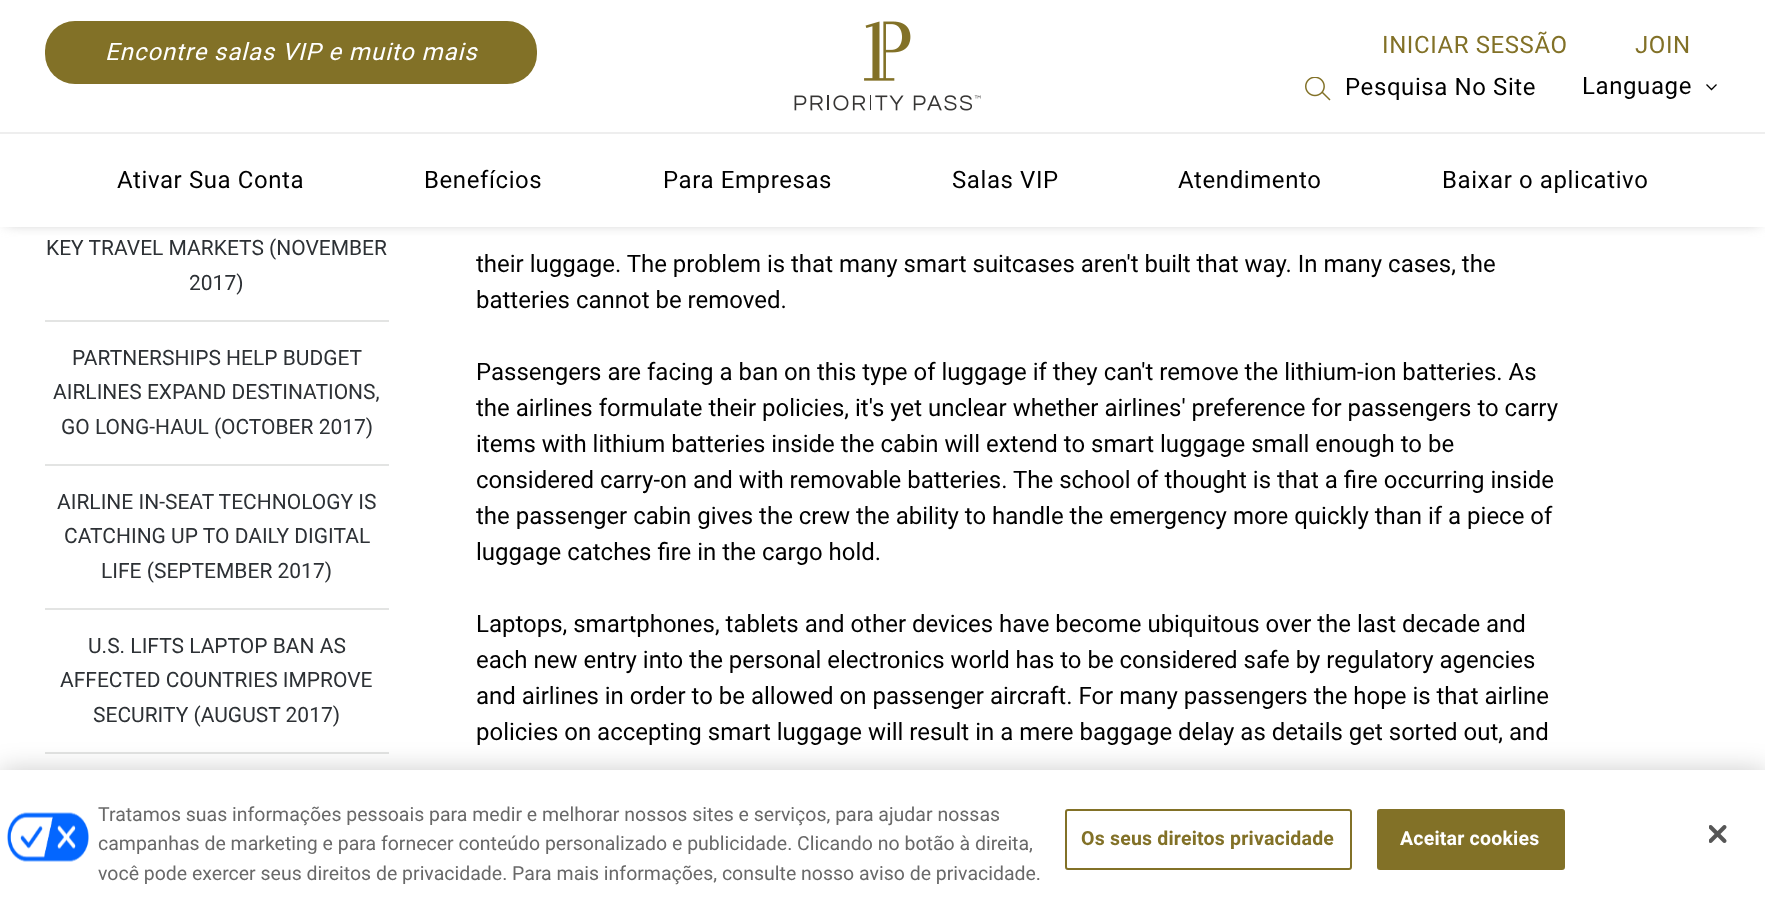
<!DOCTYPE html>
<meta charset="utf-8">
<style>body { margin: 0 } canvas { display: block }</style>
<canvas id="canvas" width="1765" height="903"></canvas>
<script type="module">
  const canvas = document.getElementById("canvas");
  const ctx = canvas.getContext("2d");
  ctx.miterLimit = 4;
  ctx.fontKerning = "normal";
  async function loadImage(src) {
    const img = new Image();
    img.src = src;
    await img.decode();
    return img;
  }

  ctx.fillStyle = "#ffffff";
  ctx.fillRect(0, 0, 1765, 903);
  ctx.fillStyle = "#a9a9a9";
  ctx.filter = "blur(7px)";
  ctx.beginPath();
  ctx.rect(6, 8, 1754, 214);
  ctx.fill();
  ctx.filter = "none";
  ctx.fillStyle = "#ffffff";
  ctx.fillRect(0, 0, 1765, 227);
  ctx.fillStyle = "#eeeeee";
  ctx.fillRect(0, 132, 1765, 2);
  ctx.fillStyle = "#827127";
  ctx.beginPath();
  ctx.roundRect(45, 21, 492, 63, 30);
  ctx.fill();
  ctx.letterSpacing = "0.9px";
  ctx.font = "italic 24px Roboto";
  ctx.fillStyle = "#ffffff";
  ctx.fillText("Encontre salas VIP e muito mais", 105, 60);
  ctx.drawImage(await loadImage("img1.png"), 794, 21, 187, 90);
  ctx.letterSpacing = "0.6px";
  ctx.font = "24px Roboto";
  ctx.fillStyle = "#827127";
  ctx.fillText("INICIAR SESSÃO", 1382, 53);
  ctx.fillText("JOIN", 1635, 53);
  ctx.drawImage(await loadImage("img2.png"), 1305, 77, 26, 24);
  ctx.fillStyle = "#000000";
  ctx.fillText("Pesquisa No Site", 1345, 95);
  ctx.fillText("Language", 1582, 94);
  ctx.beginPath();
  ctx.moveTo(1716.5, 84.5);
  ctx.lineTo(1711.5, 89.5);
  ctx.lineTo(1706.5, 84.5);
  ctx.strokeStyle = "#000000";
  ctx.lineWidth = 1.3;
  ctx.stroke();
  ctx.fillText("Ativar Sua Conta", 117, 188);
  ctx.fillText("Benefícios", 424, 188);
  ctx.fillText("Para Empresas", 663, 188);
  ctx.fillText("Salas VIP", 952, 188);
  ctx.fillText("Atendimento", 1178, 188);
  ctx.fillText("Baixar o aplicativo", 1442, 188);
  ctx.letterSpacing = "0px";
  ctx.font = "21px Roboto";
  ctx.fillStyle = "#2d3135";
  ctx.fillText("KEY TRAVEL MARKETS (NOVEMBER", 46, 255);
  ctx.fillText("2017)", 189, 290);
  ctx.fillStyle = "#e3e4e3";
  ctx.fillRect(45, 320, 344, 2);
  ctx.fillStyle = "#2d3135";
  ctx.fillText("PARTNERSHIPS HELP BUDGET", 72, 365);
  ctx.fillText("AIRLINES EXPAND DESTINATIONS,", 53, 399);
  ctx.fillText("GO LONG-HAUL (OCTOBER 2017)", 61, 434);
  ctx.fillStyle = "#e3e4e3";
  ctx.fillRect(45, 464, 344, 2);
  ctx.fillStyle = "#2d3135";
  ctx.fillText("AIRLINE IN-SEAT TECHNOLOGY IS", 57, 509);
  ctx.fillText("CATCHING UP TO DAILY DIGITAL", 64, 543);
  ctx.fillText("LIFE (SEPTEMBER 2017)", 101, 578);
  ctx.fillStyle = "#e3e4e3";
  ctx.fillRect(45, 608, 344, 2);
  ctx.fillStyle = "#2d3135";
  ctx.fillText("U.S. LIFTS LAPTOP BAN AS", 88, 653);
  ctx.fillText("AFFECTED COUNTRIES IMPROVE", 60, 687);
  ctx.fillText("SECURITY (AUGUST 2017)", 93, 722);
  ctx.fillStyle = "#e3e4e3";
  ctx.fillRect(45, 752, 344, 2);
  ctx.font = "24px Roboto";
  ctx.fillStyle = "#000000";
  ctx.fillText("their luggage. The problem is that many smart suitcases aren't built that way. In many cases, the", 476, 272);
  ctx.fillText("batteries cannot be removed.", 476, 308);
  ctx.fillText("Passengers are facing a ban on this type of luggage if they can't remove the lithium-ion batteries. As", 476, 380);
  ctx.fillText("the airlines formulate their policies, it's yet unclear whether airlines' preference for passengers to carry", 476, 416);
  ctx.fillText("items with lithium batteries inside the cabin will extend to smart luggage small enough to be", 476, 452);
  ctx.fillText("considered carry-on and with removable batteries. The school of thought is that a fire occurring inside", 476, 488);
  ctx.fillText("the passenger cabin gives the crew the ability to handle the emergency more quickly than if a piece of", 476, 524);
  ctx.fillText("luggage catches fire in the cargo hold.", 476, 560);
  ctx.fillText("Laptops, smartphones, tablets and other devices have become ubiquitous over the last decade and", 476, 632);
  ctx.fillText("each new entry into the personal electronics world has to be considered safe by regulatory agencies", 476, 668);
  ctx.fillText("and airlines in order to be allowed on passenger aircraft. For many passengers the hope is that airline", 476, 704);
  ctx.fillText("policies on accepting smart luggage will result in a mere baggage delay as details get sorted out, and", 476, 740);
  ctx.fillStyle = "rgba(0, 0, 0, 0.2)";
  ctx.filter = "blur(13.5px)";
  ctx.beginPath();
  ctx.rect(0, 770, 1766, 133);
  ctx.fill();
  ctx.filter = "none";
  ctx.fillStyle = "#ffffff";
  ctx.fillRect(0, 770, 1765, 133);
  ctx.drawImage(await loadImage("img3.png"), 7, 812, 82, 50);
  ctx.font = "19.5px Roboto";
  ctx.fillStyle = "#696969";
  ctx.fillText("Tratamos suas informações pessoais para medir e melhorar nossos sites e serviços, para ajudar nossas", 98, 821);
  ctx.fillText("campanhas de marketing e para fornecer conteúdo personalizado e publicidade. Clicando no botão à direita,", 98, 850);
  ctx.fillText("você pode exercer seus direitos de privacidade. Para mais informações, consulte nosso aviso de privacidade.", 98, 880);
  ctx.beginPath();
  ctx.roundRect(1066, 810, 285, 59, 2);
  ctx.strokeStyle = "#827127";
  ctx.lineWidth = 2;
  ctx.stroke();
  ctx.letterSpacing = "0.2px";
  ctx.font = "bold 19.5px Roboto";
  ctx.fillStyle = "#827127";
  ctx.fillText("Os seus direitos privacidade", 1081, 845);
  ctx.beginPath();
  ctx.roundRect(1378, 810, 186, 59, 2);
  ctx.fill();
  ctx.stroke();
  ctx.fillStyle = "#ffffff";
  ctx.fillText("Aceitar cookies", 1400, 845);
  ctx.drawImage(await loadImage("img4.png"), 1709, 825, 18, 18);
</script>
